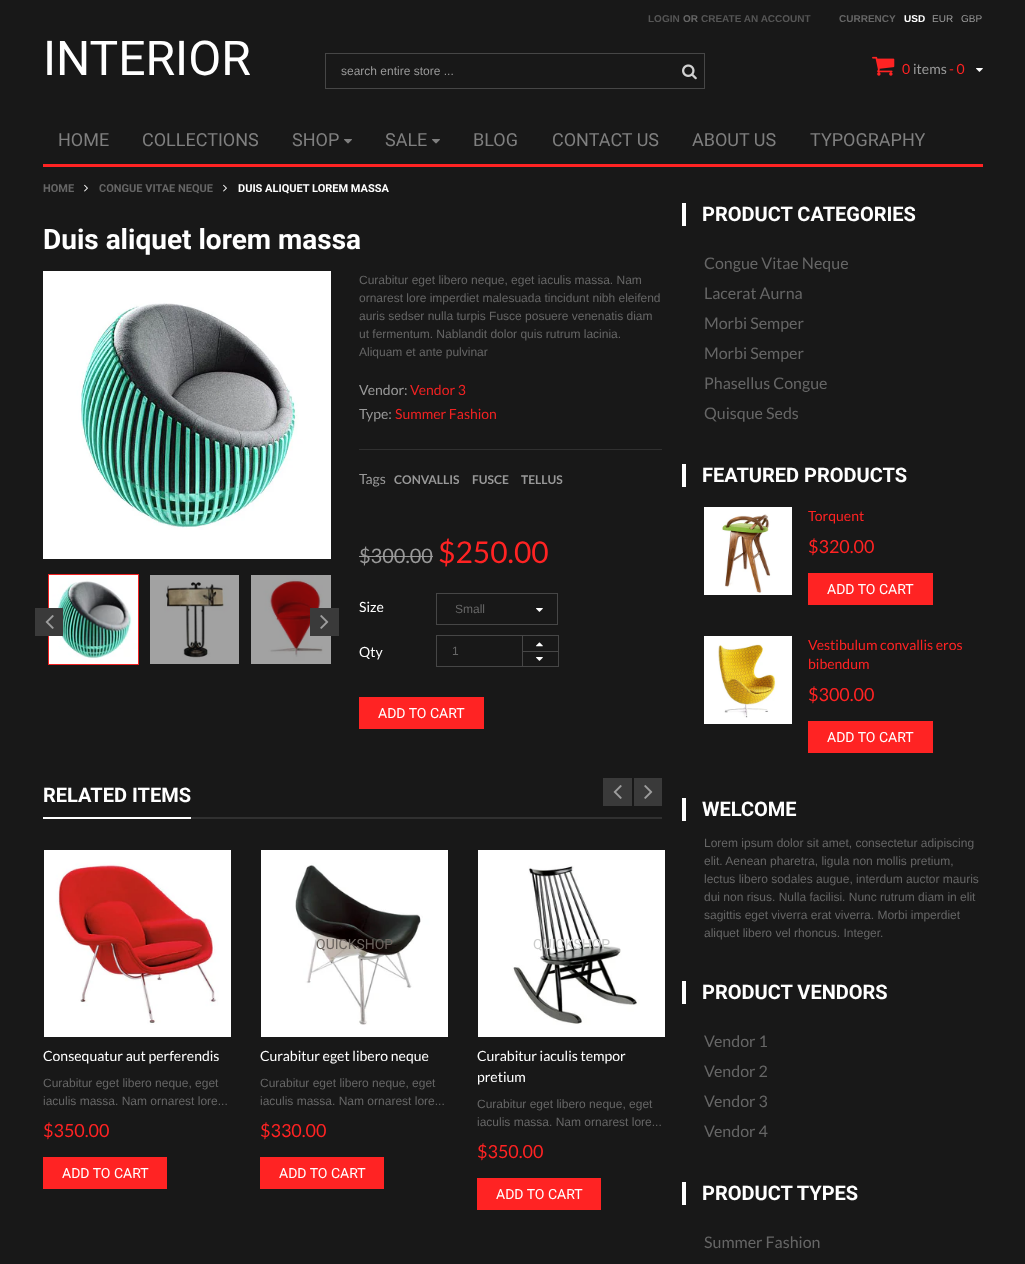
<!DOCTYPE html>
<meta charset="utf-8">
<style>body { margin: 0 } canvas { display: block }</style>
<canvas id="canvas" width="1025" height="1264"></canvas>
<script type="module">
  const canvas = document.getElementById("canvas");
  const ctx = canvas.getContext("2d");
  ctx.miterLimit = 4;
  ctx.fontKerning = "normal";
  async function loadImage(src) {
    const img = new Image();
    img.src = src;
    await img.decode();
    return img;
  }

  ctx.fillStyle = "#181818";
  ctx.fillRect(0, 0, 1025, 1264);
  ctx.font = "48px Roboto";
  ctx.fillStyle = "#ffffff";
  ctx.fillText("INTERIOR", 43, 75);
  ctx.font = "bold 10px Liberation Sans";
  ctx.fillStyle = "#565656";
  ctx.fillText("LOGIN", 648, 22);
  ctx.fillStyle = "#666666";
  ctx.fillText("OR", 683, 22);
  ctx.fillStyle = "#565656";
  ctx.fillText("CREATE AN ACCOUNT", 701, 22);
  ctx.fillStyle = "#666666";
  ctx.fillText("CURRENCY", 839, 22);
  ctx.fillStyle = "#ffffff";
  ctx.fillText("USD", 904, 22);
  ctx.font = "10px Liberation Sans";
  ctx.fillStyle = "#999999";
  ctx.fillText("EUR", 932, 22);
  ctx.fillText("GBP", 961, 22);
  ctx.strokeStyle = "#464646";
  ctx.strokeRect(325.5, 53.5, 379, 35);
  ctx.font = "12px Liberation Sans";
  ctx.fillText("search entire store ...", 341, 75);
  ctx.drawImage(await loadImage("img1.png"), 682, 64, 15, 16);
  ctx.drawImage(await loadImage("img2.png"), 872, 56, 23, 20);
  ctx.font = "14px Lato";
  ctx.fillStyle = "#ff2323";
  ctx.fillText("0", 902, 74);
  ctx.fillStyle = "#999999";
  ctx.fillText("items", 913, 74);
  ctx.fillStyle = "#ff2323";
  ctx.fillText("- 0", 949, 74);
  ctx.drawImage(await loadImage("img3.png"), 976, 68, 7, 4);
  ctx.fillRect(43, 164, 940, 3);
  ctx.font = "18px Roboto";
  ctx.fillStyle = "#7f7f7f";
  ctx.fillText("HOME", 58, 146);
  ctx.fillText("COLLECTIONS", 142, 146);
  ctx.fillText("SHOP", 292, 146);
  ctx.drawImage(await loadImage("img4.png"), 344, 139, 8, 5);
  ctx.fillText("SALE", 385, 146);
  ctx.drawImage(await loadImage("img4.png"), 432, 139, 8, 5);
  ctx.fillText("BLOG", 473, 146);
  ctx.fillText("CONTACT US", 552, 146);
  ctx.fillText("ABOUT US", 692, 146);
  ctx.fillText("TYPOGRAPHY", 810, 146);
  ctx.font = "bold 11px Roboto";
  ctx.fillStyle = "#666666";
  ctx.fillText("HOME", 43, 192);
  ctx.drawImage(await loadImage("img5.png"), 84, 184, 4, 8);
  ctx.fillText("CONGUE VITAE NEQUE", 99, 192);
  ctx.drawImage(await loadImage("img5.png"), 223, 184, 4, 8);
  ctx.fillStyle = "#ffffff";
  ctx.fillText("DUIS ALIQUET LOREM MASSA", 238, 192);
  ctx.font = "bold 28px Roboto";
  ctx.fillText("Duis aliquet lorem massa", 43, 249);
  ctx.drawImage(await loadImage("img6.png"), 43, 271, 288, 288);
  ctx.strokeStyle = "#f02222";
  ctx.strokeRect(48.5, 574.5, 90, 90);
  ctx.drawImage(await loadImage("img7.png"), 49, 575, 89, 89);
  ctx.drawImage(await loadImage("img8.png"), 150, 575, 89, 89);
  ctx.drawImage(await loadImage("img9.png"), 251, 575, 80, 89);
  ctx.fillStyle = "#3a3a3a";
  ctx.fillRect(35, 608, 28, 28);
  ctx.drawImage(await loadImage("img10.png"), 45, 615, 9, 14);
  ctx.fillRect(310, 608, 29, 28);
  ctx.drawImage(await loadImage("img11.png"), 320, 615, 9, 14);
  ctx.font = "12px Liberation Sans";
  ctx.fillStyle = "#666666";
  ctx.fillText("Curabitur eget libero neque, eget iaculis massa. Nam", 359, 284);
  ctx.fillText("ornarest lore imperdiet malesuada tincidunt nibh eleifend", 359, 302);
  ctx.fillText("auris sedser nulla turpis Fusce posuere venenatis diam", 359, 320);
  ctx.fillText("ut fermentum. Nablandit dolor quis rutrum lacinia.", 359, 338);
  ctx.fillText("Aliquam et ante pulvinar", 359, 356);
  ctx.font = "14px Lato";
  ctx.fillStyle = "#999999";
  ctx.fillText("Vendor:", 359, 395);
  ctx.fillStyle = "#f02222";
  ctx.fillText("Vendor 3", 410, 395);
  ctx.fillStyle = "#303030";
  ctx.fillRect(359, 449, 303, 1);
  ctx.fillStyle = "#999999";
  ctx.fillText("Type:", 359, 419);
  ctx.fillStyle = "#f02222";
  ctx.fillText("Summer Fashion", 395, 419);
  ctx.fillStyle = "#999999";
  ctx.fillText("Tags", 359, 484);
  ctx.font = "bold 12px Lato";
  ctx.fillText("CONVALLIS", 394, 484);
  ctx.fillText("FUSCE", 472, 484);
  ctx.fillText("TELLUS", 521, 484);
  ctx.font = "20px Lato";
  ctx.fillText("$300.00", 359, 563);
  ctx.fillRect(359, 556, 74, 1);
  ctx.font = "30px Lato";
  ctx.fillStyle = "#ff2323";
  ctx.fillText("$250.00", 438, 563);
  ctx.font = "14px Lato";
  ctx.fillStyle = "#ffffff";
  ctx.fillText("Size", 359, 612);
  ctx.strokeStyle = "#464646";
  ctx.strokeRect(436.5, 593.5, 121, 31);
  ctx.font = "12px Liberation Sans";
  ctx.fillStyle = "#666666";
  ctx.fillText("Small", 455, 613);
  ctx.drawImage(await loadImage("img3.png"), 536, 608, 7, 4);
  ctx.font = "14px Lato";
  ctx.fillStyle = "#ffffff";
  ctx.fillText("Qty", 359, 657);
  ctx.strokeRect(436.5, 635.5, 122, 31);
  ctx.font = "12px Liberation Sans";
  ctx.fillStyle = "#666666";
  ctx.fillText("1", 452, 655);
  ctx.strokeRect(522.5, 635.5, 36, 31);
  ctx.fillStyle = "#464646";
  ctx.fillRect(523, 651, 35, 1);
  ctx.drawImage(await loadImage("img12.png"), 536, 642, 7, 5);
  ctx.drawImage(await loadImage("img3.png"), 536, 657, 7, 4);
  ctx.fillStyle = "#ff2323";
  ctx.fillRect(359, 697, 125, 32);
  ctx.font = "14px Roboto";
  ctx.fillStyle = "#ffffff";
  ctx.fillText("ADD TO CART", 378, 718);
  ctx.fillStyle = "#303030";
  ctx.fillRect(191, 817, 471, 2);
  ctx.font = "bold 20px Roboto";
  ctx.fillStyle = "#ffffff";
  ctx.fillText("RELATED ITEMS", 43, 802);
  ctx.fillRect(43, 817, 148, 2);
  ctx.fillStyle = "#3a3a3a";
  ctx.fillRect(603, 778, 29, 28);
  ctx.drawImage(await loadImage("img10.png"), 613, 785, 9, 14);
  ctx.fillRect(634, 778, 28, 28);
  ctx.drawImage(await loadImage("img11.png"), 644, 785, 9, 14);
  ctx.drawImage(await loadImage("img13.png"), 44, 850, 187, 187);
  ctx.font = "14px Lato";
  ctx.fillStyle = "#ffffff";
  ctx.fillText("Consequatur aut perferendis", 43, 1061);
  ctx.font = "12px Liberation Sans";
  ctx.fillStyle = "#666666";
  ctx.fillText("Curabitur eget libero neque, eget", 43, 1087);
  ctx.fillText("iaculis massa. Nam ornarest lore...", 43, 1105);
  ctx.font = "18px Lato";
  ctx.fillStyle = "#ff2323";
  ctx.fillText("$350.00", 43, 1137);
  ctx.fillRect(43, 1157, 124, 32);
  ctx.font = "14px Roboto";
  ctx.fillStyle = "#ffffff";
  ctx.fillText("ADD TO CART", 62, 1178);
  ctx.drawImage(await loadImage("img14.png"), 261, 850, 187, 187);
  ctx.fillStyle = "#6b645f";
  ctx.fillText("QUICKSHOP", 316, 949);
  ctx.font = "14px Lato";
  ctx.fillStyle = "#ffffff";
  ctx.fillText("Curabitur eget libero neque", 260, 1061);
  ctx.font = "12px Liberation Sans";
  ctx.fillStyle = "#666666";
  ctx.fillText("Curabitur eget libero neque, eget", 260, 1087);
  ctx.fillText("iaculis massa. Nam ornarest lore...", 260, 1105);
  ctx.font = "18px Lato";
  ctx.fillStyle = "#ff2323";
  ctx.fillText("$330.00", 260, 1137);
  ctx.fillRect(260, 1157, 124, 32);
  ctx.font = "14px Roboto";
  ctx.fillStyle = "#ffffff";
  ctx.fillText("ADD TO CART", 279, 1178);
  ctx.drawImage(await loadImage("img15.png"), 478, 850, 187, 187);
  ctx.fillStyle = "#cbcccb";
  ctx.fillText("QUICKSHOP", 533, 949);
  ctx.font = "14px Lato";
  ctx.fillStyle = "#ffffff";
  ctx.fillText("Curabitur iaculis tempor", 477, 1061);
  ctx.fillText("pretium", 477, 1082);
  ctx.font = "12px Liberation Sans";
  ctx.fillStyle = "#666666";
  ctx.fillText("Curabitur eget libero neque, eget", 477, 1108);
  ctx.fillText("iaculis massa. Nam ornarest lore...", 477, 1126);
  ctx.font = "18px Lato";
  ctx.fillStyle = "#ff2323";
  ctx.fillText("$350.00", 477, 1158);
  ctx.fillRect(477, 1178, 124, 32);
  ctx.font = "14px Roboto";
  ctx.fillStyle = "#ffffff";
  ctx.fillText("ADD TO CART", 496, 1199);
  ctx.fillRect(682, 203, 4, 23);
  ctx.font = "bold 20px Roboto";
  ctx.fillText("PRODUCT CATEGORIES", 702, 221);
  ctx.font = "16px Lato";
  ctx.fillStyle = "#666666";
  ctx.fillText("Congue Vitae Neque", 704, 269);
  ctx.fillText("Lacerat Aurna", 704, 299);
  ctx.fillText("Morbi Semper", 704, 329);
  ctx.fillText("Morbi Semper", 704, 359);
  ctx.fillText("Phasellus Congue", 704, 389);
  ctx.fillText("Quisque Seds", 704, 419);
  ctx.fillStyle = "#ffffff";
  ctx.fillRect(682, 464, 4, 23);
  ctx.font = "bold 20px Roboto";
  ctx.fillText("FEATURED PRODUCTS", 702, 482);
  ctx.drawImage(await loadImage("img16.png"), 704, 507, 88, 88);
  ctx.font = "14px Lato";
  ctx.fillStyle = "#ff2323";
  ctx.fillText("Torquent", 808, 521);
  ctx.font = "18px Lato";
  ctx.fillText("$320.00", 808, 553);
  ctx.fillRect(808, 573, 125, 32);
  ctx.font = "14px Roboto";
  ctx.fillStyle = "#ffffff";
  ctx.fillText("ADD TO CART", 827, 594);
  ctx.drawImage(await loadImage("img17.png"), 704, 636, 88, 88);
  ctx.font = "14px Lato";
  ctx.fillStyle = "#ff2323";
  ctx.fillText("Vestibulum convallis eros", 808, 650);
  ctx.fillText("bibendum", 808, 669);
  ctx.font = "18px Lato";
  ctx.fillText("$300.00", 808, 701);
  ctx.fillRect(808, 721, 125, 32);
  ctx.font = "14px Roboto";
  ctx.fillStyle = "#ffffff";
  ctx.fillText("ADD TO CART", 827, 742);
  ctx.fillRect(682, 798, 4, 23);
  ctx.font = "bold 20px Roboto";
  ctx.fillText("WELCOME", 702, 816);
  ctx.font = "12px Liberation Sans";
  ctx.fillStyle = "#666666";
  ctx.fillText("Lorem ipsum dolor sit amet, consectetur adipiscing", 704, 847);
  ctx.fillText("elit. Aenean pharetra, ligula non mollis pretium,", 704, 865);
  ctx.fillText("lectus libero sodales augue, interdum auctor mauris", 704, 883);
  ctx.fillText("dui non risus. Nulla facilisi. Nunc rutrum diam in elit", 704, 901);
  ctx.fillText("sagittis eget viverra erat viverra. Morbi imperdiet", 704, 919);
  ctx.fillText("aliquet libero vel rhoncus. Integer.", 704, 937);
  ctx.fillStyle = "#ffffff";
  ctx.fillRect(682, 981, 4, 23);
  ctx.font = "bold 20px Roboto";
  ctx.fillText("PRODUCT VENDORS", 702, 999);
  ctx.font = "16px Lato";
  ctx.fillStyle = "#666666";
  ctx.fillText("Vendor 1", 704, 1047);
  ctx.fillText("Vendor 2", 704, 1077);
  ctx.fillText("Vendor 3", 704, 1107);
  ctx.fillText("Vendor 4", 704, 1137);
  ctx.fillStyle = "#ffffff";
  ctx.fillRect(682, 1182, 4, 23);
  ctx.font = "bold 20px Roboto";
  ctx.fillText("PRODUCT TYPES", 702, 1200);
  ctx.font = "16px Lato";
  ctx.fillStyle = "#666666";
  ctx.fillText("Summer Fashion", 704, 1248);
</script>
